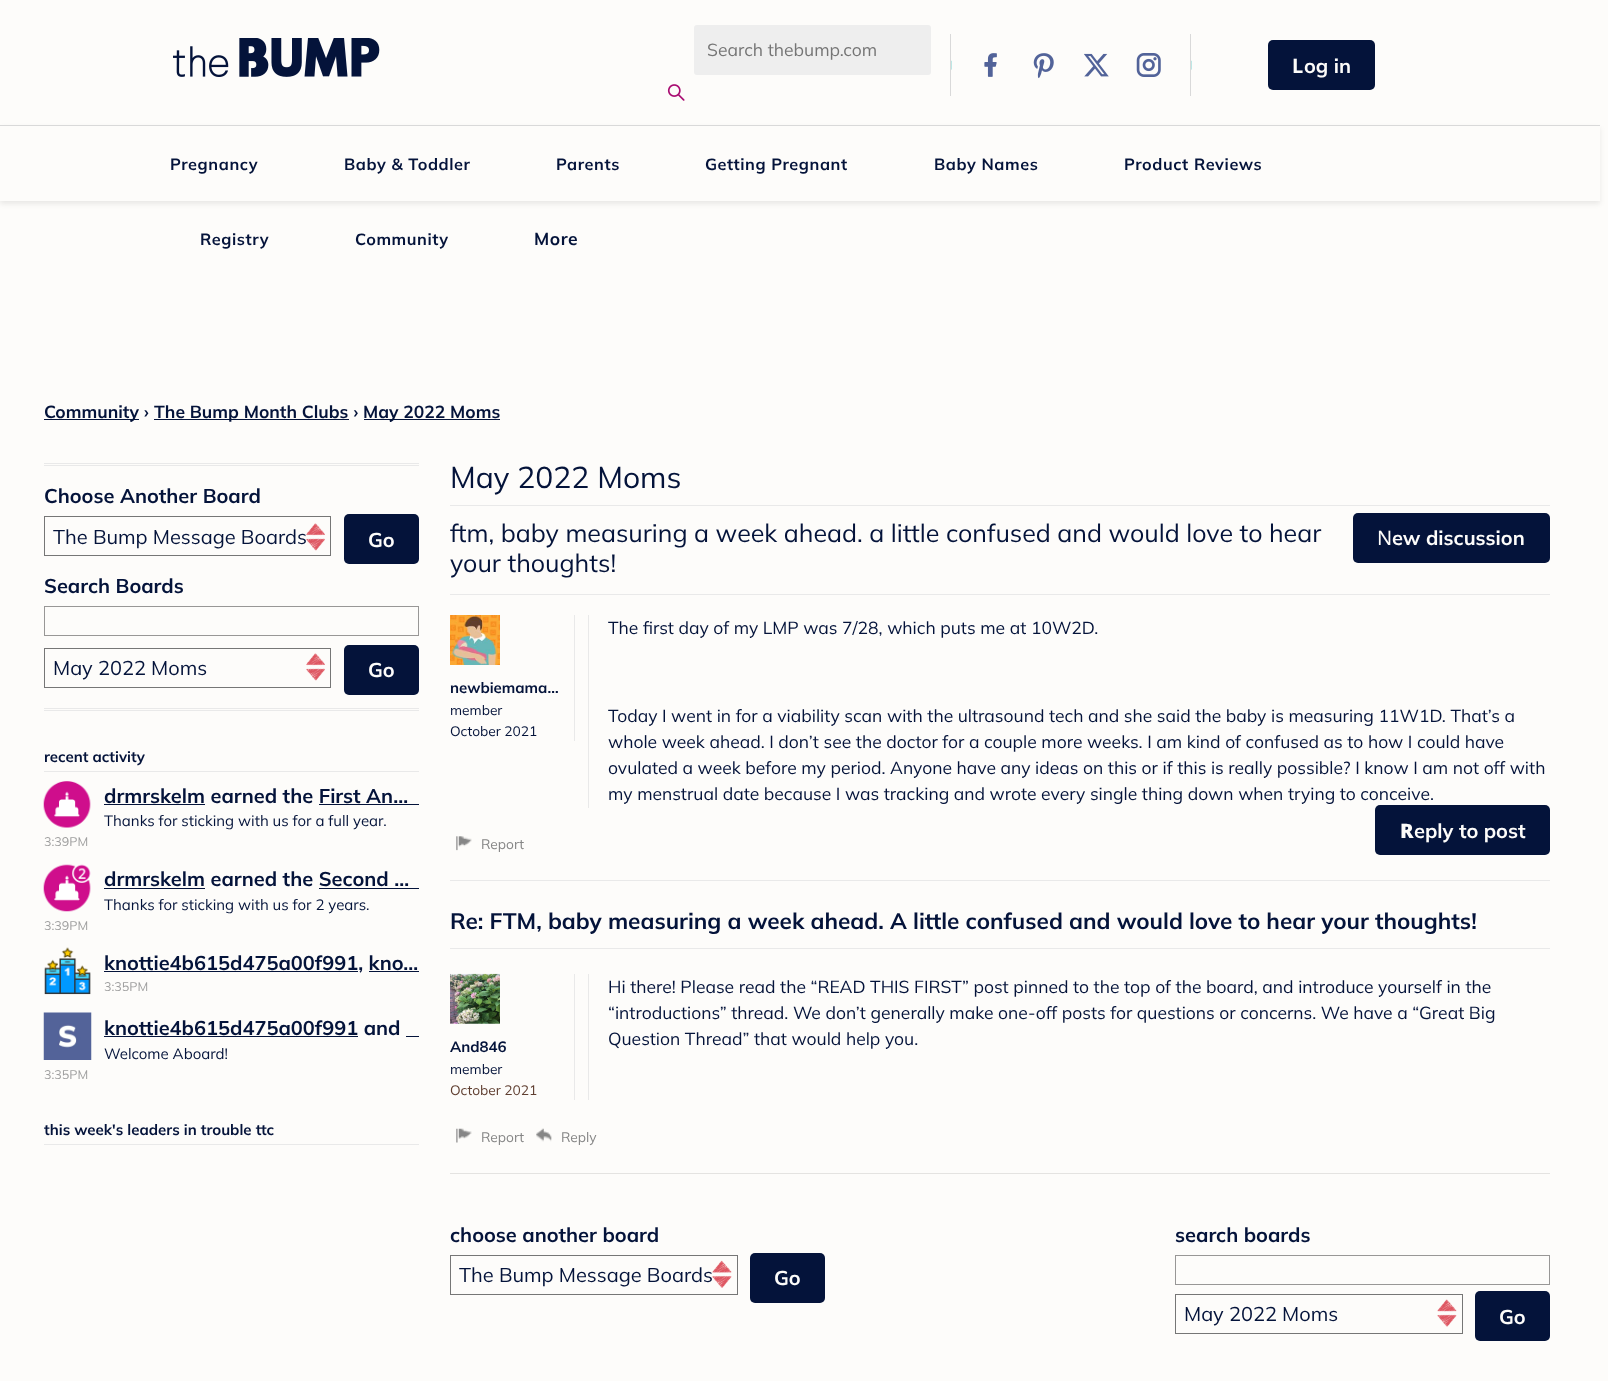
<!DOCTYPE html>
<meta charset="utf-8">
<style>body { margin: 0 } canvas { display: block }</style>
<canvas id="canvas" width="1608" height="1381"></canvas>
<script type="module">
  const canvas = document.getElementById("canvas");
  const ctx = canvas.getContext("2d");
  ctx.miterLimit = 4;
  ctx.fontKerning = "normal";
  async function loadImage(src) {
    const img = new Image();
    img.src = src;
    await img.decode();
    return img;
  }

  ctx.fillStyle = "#fdfcfa";
  ctx.fillRect(0, 0, 1608, 1381);
  ctx.drawImage(await loadImage("img1.png"), 173, 38, 207, 39);
  ctx.fillStyle = "#eeeeee";
  ctx.beginPath();
  ctx.roundRect(694, 25, 237, 50, 3);
  ctx.fill();
  ctx.font = "200 17.5px 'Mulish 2'";
  ctx.fillStyle = "#757575";
  ctx.fillText("Search thebump.com", 707, 56);
  ctx.drawImage(await loadImage("img2.png"), 667, 84, 18, 17);
  ctx.drawImage(await loadImage("img3.png"), 951, 60, 1, 10);
  ctx.fillStyle = "#d9d9d9";
  ctx.fillRect(950, 34, 1, 62);
  ctx.drawImage(await loadImage("img4.png"), 984, 53, 13, 24);
  ctx.drawImage(await loadImage("img5.png"), 1033, 53, 21, 26);
  ctx.drawImage(await loadImage("img6.png"), 1084, 53, 25, 24);
  ctx.drawImage(await loadImage("img7.png"), 1136, 53, 25, 24);
  ctx.drawImage(await loadImage("img3.png"), 1191, 60, 1, 10);
  ctx.fillRect(1190, 34, 1, 62);
  ctx.fillStyle = "#04133a";
  ctx.beginPath();
  ctx.roundRect(1268, 40, 107, 50, 5);
  ctx.fill();
  ctx.font = "bold 20px Noto Sans";
  ctx.fillStyle = "#fdfcfa";
  ctx.fillText("L", 1292, 73);
  ctx.font = "200 20px Mulish";
  ctx.fillText("og in", 1304, 73);
  ctx.save();
  ctx.beginPath();
  ctx.moveTo(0, 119);
  ctx.lineTo(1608, 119);
  ctx.lineTo(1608, 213);
  ctx.lineTo(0, 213);
  ctx.closePath();
  ctx.moveTo(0, 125);
  ctx.lineTo(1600, 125);
  ctx.lineTo(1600, 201);
  ctx.lineTo(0, 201);
  ctx.closePath();
  ctx.clip("evenodd");
  ctx.fillStyle = "rgba(0, 0, 0, 0.08)";
  ctx.filter = "blur(2.5px)";
  ctx.beginPath();
  ctx.rect(0, 128, 1600, 76);
  ctx.fill();
  ctx.filter = "none";
  ctx.restore();
  ctx.fillStyle = "#d9d9d9";
  ctx.fillRect(0, 125, 1600, 1);
  ctx.letterSpacing = "0.6px";
  ctx.font = "200 16.25px Mulish";
  ctx.fillStyle = "#04133a";
  ctx.fillText("Pregnancy", 170, 170);
  ctx.fillText("Baby & Toddler", 344, 170);
  ctx.fillText("Parents", 556, 170);
  ctx.fillText("Getting Pregnant", 705, 170);
  ctx.fillText("Baby Names", 934, 170);
  ctx.fillText("Product Reviews", 1124, 170);
  ctx.fillText("Registry", 200, 245);
  ctx.fillText("Community", 355, 245);
  ctx.font = "200 17.5px Mulish";
  ctx.fillText("More", 534, 245);
  ctx.fillRect(44, 419, 95, 1);
  ctx.letterSpacing = "0px";
  ctx.fillText("Community ›", 44, 418);
  ctx.fillRect(154, 419, 195, 1);
  ctx.fillText("The Bump Month Clubs ›", 154, 418);
  ctx.fillRect(364, 419, 136, 1);
  ctx.fillText("May 2022 Moms", 363, 418);
  ctx.fillStyle = "#e9e9e9";
  ctx.fillRect(44, 463, 375, 1);
  ctx.fillRect(44, 465, 375, 1);
  ctx.fillRect(44, 708, 375, 1);
  ctx.fillRect(44, 710, 375, 1);
  ctx.font = "200 20px Mulish";
  ctx.fillStyle = "#04133a";
  ctx.fillText("Choose Another Board", 44, 503);
  ctx.drawImage(await loadImage("img8.png"), 306, 523, 19, 28);
  ctx.strokeStyle = "#767676";
  ctx.strokeRect(44.5, 516.5, 286, 39);
  ctx.font = "200 20px 'Mulish 2'";
  ctx.fillText("The Bump Message Boards", 53, 544);
  ctx.beginPath();
  ctx.roundRect(344, 514, 75, 50, 5);
  ctx.fill();
  ctx.font = "200 20px Mulish";
  ctx.fillStyle = "#fdfcfa";
  ctx.fillText("Go", 368, 547);
  ctx.fillStyle = "#04133a";
  ctx.fillText("Search Boards", 44, 593);
  ctx.strokeStyle = "#989796";
  ctx.strokeRect(44.5, 606.5, 374, 29);
  ctx.drawImage(await loadImage("img8.png"), 306, 653, 19, 28);
  ctx.strokeStyle = "#767676";
  ctx.strokeRect(44.5, 648.5, 286, 39);
  ctx.font = "200 20px 'Mulish 2'";
  ctx.fillText("May 2022 Moms", 53, 675);
  ctx.beginPath();
  ctx.roundRect(344, 645, 75, 50, 5);
  ctx.fill();
  ctx.font = "200 20px Mulish";
  ctx.fillStyle = "#fdfcfa";
  ctx.fillText("Go", 368, 677);
  ctx.fillStyle = "#e9e9e9";
  ctx.fillRect(44, 771, 375, 1);
  ctx.font = "200 15px Mulish";
  ctx.fillStyle = "#04133a";
  ctx.fillText("recent activity", 44, 762);
  ctx.drawImage(await loadImage("img9.png"), 43, 781, 48, 47);
  ctx.font = "200 20px Mulish";
  ctx.fillText("drmrskelm earned the First An…", 104, 803);
  ctx.fillRect(104, 804, 101, 1);
  ctx.fillRect(319, 804, 100, 1);
  ctx.font = "200 15px 'Mulish 2'";
  ctx.fillText("Thanks for sticking with us for a full year.", 104, 826);
  ctx.font = "200 12.5px 'Mulish 2'";
  ctx.fillStyle = "#9e9e9e";
  ctx.fillText("3:39PM", 44, 846);
  ctx.drawImage(await loadImage("img10.png"), 43, 864, 48, 48);
  ctx.font = "200 20px Mulish";
  ctx.fillStyle = "#04133a";
  ctx.fillText("drmrskelm earned the Second …", 104, 886);
  ctx.fillRect(104, 888, 101, 1);
  ctx.fillRect(319, 888, 100, 1);
  ctx.font = "200 15px 'Mulish 2'";
  ctx.fillText("Thanks for sticking with us for 2 years.", 104, 910);
  ctx.font = "200 12.5px 'Mulish 2'";
  ctx.fillStyle = "#9e9e9e";
  ctx.fillText("3:39PM", 44, 930);
  ctx.drawImage(await loadImage("img11.png"), 44, 947, 47, 48);
  ctx.fillStyle = "#04133a";
  ctx.fillRect(104, 971, 254, 1);
  ctx.font = "200 20px Mulish";
  ctx.fillText("knottie4b615d475a00f991, kno…", 104, 970);
  ctx.fillRect(369, 971, 50, 1);
  ctx.font = "200 12.5px 'Mulish 2'";
  ctx.fillStyle = "#9e9e9e";
  ctx.fillText("3:35PM", 104, 991);
  ctx.drawImage(await loadImage("img12.png"), 43, 1012, 49, 48);
  ctx.font = "200 20px Mulish";
  ctx.fillStyle = "#04133a";
  ctx.fillText("knottie4b615d475a00f991 and", 104, 1035);
  ctx.fillRect(104, 1036, 254, 1);
  ctx.fillRect(406, 1036, 13, 1);
  ctx.font = "200 15px 'Mulish 2'";
  ctx.fillText("Welcome Aboard!", 104, 1059);
  ctx.font = "200 12.5px 'Mulish 2'";
  ctx.fillStyle = "#9e9e9e";
  ctx.fillText("3:35PM", 44, 1079);
  ctx.fillStyle = "#e9e9e9";
  ctx.fillRect(44, 1144, 375, 1);
  ctx.font = "200 15px Mulish";
  ctx.fillStyle = "#04133a";
  ctx.fillText("this week's leaders in trouble ttc", 44, 1135);
  ctx.fillStyle = "#e9e9e9";
  ctx.fillRect(450, 505, 1100, 1);
  ctx.font = "200 30px 'Mulish 2'";
  ctx.fillStyle = "#04133a";
  ctx.fillText("May 2022 Moms", 450, 488);
  ctx.fillStyle = "#e9e9e9";
  ctx.fillRect(450, 594, 1100, 1);
  ctx.font = "200 25px 'Mulish 2'";
  ctx.fillStyle = "#04133a";
  ctx.fillText("ftm, baby measuring a week ahead. a little confused and would love to hear", 450, 542);
  ctx.fillText("your thoughts!", 450, 572);
  ctx.fillStyle = "#e9e9e9";
  ctx.fillRect(450, 880, 1100, 1);
  ctx.fillRect(588, 615, 1, 193);
  ctx.font = "200 17.5px 'Mulish 2'";
  ctx.fillStyle = "#04133a";
  ctx.fillText("The first day of my LMP was 7/28, which puts me at 10W2D.", 608, 634);
  ctx.fillText("Today I went in for a viability scan with the ultrasound tech and she said the baby is measuring 11W1D. That’s a", 608, 722);
  ctx.fillText("whole week ahead. I don’t see the doctor for a couple more weeks. I am kind of confused as to how I could have", 608, 748);
  ctx.fillText("ovulated a week before my period. Anyone have any ideas on this or if this is really possible? I know I am not off with", 608, 774);
  ctx.fillText("my menstrual date because I was tracking and wrote every single thing down when trying to conceive.", 608, 800);
  ctx.beginPath();
  ctx.roundRect(1375, 805, 175, 50, 5);
  ctx.fill();
  ctx.font = "900 20px Noto Sans";
  ctx.fillStyle = "#fdfcfa";
  ctx.fillText("R", 1400, 838);
  ctx.font = "200 20px Mulish";
  ctx.fillText("eply to post", 1414, 838);
  ctx.drawImage(await loadImage("img13.png"), 456, 836, 16, 15);
  ctx.font = "200 13.75px 'Mulish 2'";
  ctx.fillStyle = "#868686";
  ctx.fillText("Report", 481, 849);
  ctx.fillStyle = "#e9e9e9";
  ctx.fillRect(574, 615, 1, 126);
  ctx.drawImage(await loadImage("img14.png"), 450, 615, 50, 50);
  ctx.font = "200 15px Mulish";
  ctx.fillStyle = "#04133a";
  ctx.fillText("newbiemama…", 450, 693);
  ctx.font = "200 13.75px 'Mulish 2'";
  ctx.fillText("member", 450, 715);
  ctx.fillText("October 2021", 450, 736);
  ctx.beginPath();
  ctx.roundRect(1353, 513, 197, 50, 5);
  ctx.fill();
  ctx.font = "20px Noto Sans";
  ctx.fillStyle = "#fdfcfa";
  ctx.fillText("N", 1377, 545);
  ctx.font = "200 20px Mulish";
  ctx.fillText("ew discussion", 1392, 545);
  ctx.fillStyle = "#e9e9e9";
  ctx.fillRect(450, 948, 1100, 1);
  ctx.font = "200 22.5px Mulish";
  ctx.fillStyle = "#04133a";
  ctx.fillText("Re: FTM, baby measuring a week ahead. A little confused and would love to hear your thoughts!", 450, 929);
  ctx.fillStyle = "#e4e3e1";
  ctx.fillRect(450, 1173, 1100, 1);
  ctx.fillStyle = "#e9e9e9";
  ctx.fillRect(588, 974, 1, 126);
  ctx.font = "200 17.5px 'Mulish 2'";
  ctx.fillStyle = "#04133a";
  ctx.fillText("Hi there! Please read the “READ THIS FIRST” post pinned to the top of the board, and introduce yourself in the", 608, 993);
  ctx.fillText("“introductions” thread. We don’t generally make one-off posts for questions or concerns. We have a “Great Big", 608, 1019);
  ctx.fillText("Question Thread” that would help you.", 608, 1045);
  ctx.drawImage(await loadImage("img15.png"), 456, 1128, 16, 15);
  ctx.font = "200 13.75px 'Mulish 2'";
  ctx.fillStyle = "#868686";
  ctx.fillText("Report", 481, 1142);
  ctx.drawImage(await loadImage("img16.png"), 536, 1128, 16, 14);
  ctx.fillText("Reply", 561, 1142);
  ctx.fillStyle = "#e9e9e9";
  ctx.fillRect(574, 974, 1, 126);
  ctx.drawImage(await loadImage("img17.png"), 450, 973, 50, 51);
  ctx.font = "200 15px Mulish";
  ctx.fillStyle = "#04133a";
  ctx.fillText("And846", 450, 1052);
  ctx.font = "200 13.75px 'Mulish 2'";
  ctx.fillText("member", 450, 1074);
  ctx.fillStyle = "#5f3e30";
  ctx.fillText("October 2021", 450, 1095);
  ctx.font = "200 20px Mulish";
  ctx.fillStyle = "#04133a";
  ctx.fillText("choose another board", 450, 1242);
  ctx.fillText("search boards", 1175, 1242);
  ctx.strokeStyle = "#989796";
  ctx.strokeRect(1175.5, 1255.5, 374, 29);
  ctx.drawImage(await loadImage("img18.png"), 1437, 1299, 20, 28);
  ctx.strokeStyle = "#767676";
  ctx.strokeRect(1175.5, 1294.5, 287, 39);
  ctx.font = "200 20px 'Mulish 2'";
  ctx.fillText("May 2022 Moms", 1184, 1321);
  ctx.beginPath();
  ctx.roundRect(1475, 1291, 75, 50, 5);
  ctx.fill();
  ctx.font = "200 20px Mulish";
  ctx.fillStyle = "#fdfcfa";
  ctx.fillText("Go", 1499, 1324);
  ctx.drawImage(await loadImage("img19.png"), 712, 1260, 20, 28);
  ctx.strokeRect(450.5, 1255.5, 287, 39);
  ctx.font = "200 20px 'Mulish 2'";
  ctx.fillStyle = "#04133a";
  ctx.fillText("The Bump Message Boards", 459, 1282);
  ctx.beginPath();
  ctx.roundRect(750, 1253, 75, 50, 5);
  ctx.fill();
  ctx.font = "200 20px Mulish";
  ctx.fillStyle = "#fdfcfa";
  ctx.fillText("Go", 774, 1285);
</script>
